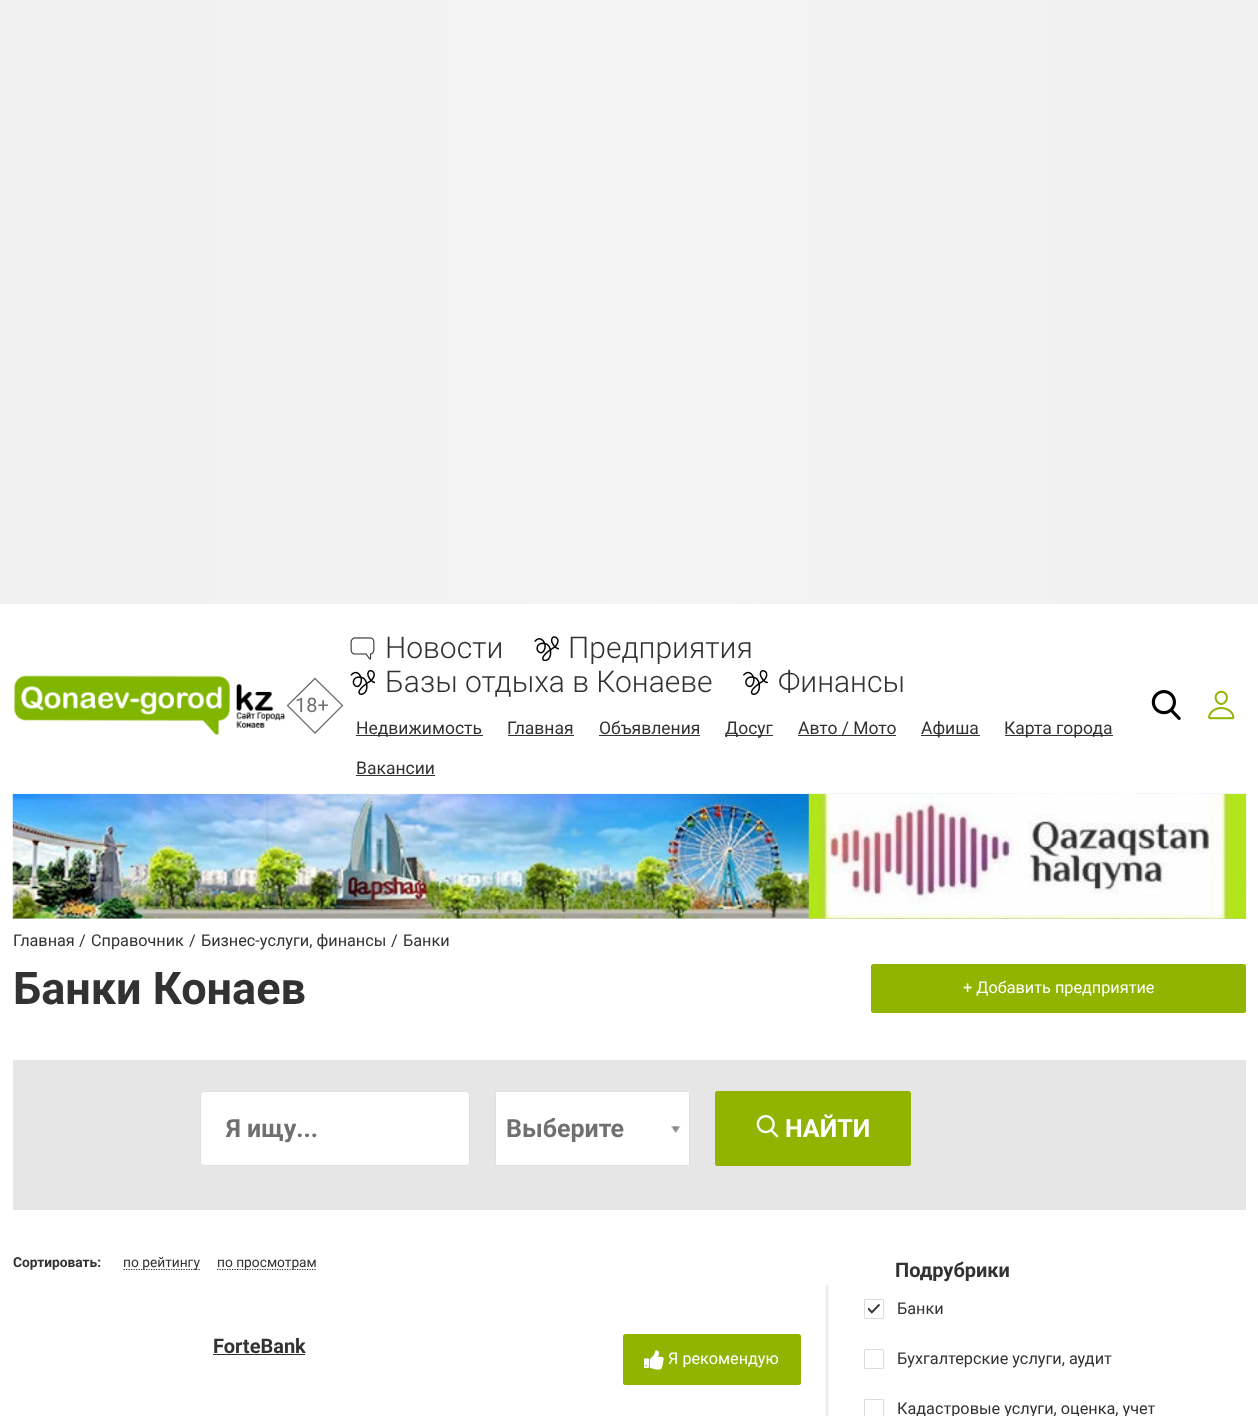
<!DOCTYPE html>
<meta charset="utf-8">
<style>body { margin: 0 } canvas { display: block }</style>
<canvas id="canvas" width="1258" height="1416"></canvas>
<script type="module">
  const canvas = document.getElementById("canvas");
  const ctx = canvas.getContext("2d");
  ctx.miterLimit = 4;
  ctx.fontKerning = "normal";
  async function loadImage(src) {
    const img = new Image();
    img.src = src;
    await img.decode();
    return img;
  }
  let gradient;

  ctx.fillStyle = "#ffffff";
  ctx.fillRect(0, 0, 1258, 1416);
  gradient = ctx.createLinearGradient(0, 302, 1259, 302);
  gradient.addColorStop(0, "#f0f0f0");
  gradient.addColorStop(0.5, "#f4f4f4");
  gradient.addColorStop(1, "#f0f0f0");
  ctx.fillStyle = gradient;
  ctx.fillRect(0, 0, 1258, 604);
  ctx.drawImage(await loadImage("img1.png"), 14, 675, 271, 60);
  ctx.beginPath();
  ctx.moveTo(315, 678.5);
  ctx.lineTo(342.5, 705.5);
  ctx.lineTo(315, 733);
  ctx.lineTo(287.5, 705.5);
  ctx.closePath();
  ctx.strokeStyle = "#707070";
  ctx.lineWidth = 1.3;
  ctx.stroke();
  ctx.font = "20px Roboto";
  ctx.fillStyle = "#707070";
  ctx.fillText("18+", 295, 712);
  ctx.drawImage(await loadImage("img2.png"), 350, 637, 25, 23);
  ctx.font = "300 30px Roboto";
  ctx.fillStyle = "#323232";
  ctx.fillText("Новости", 385, 658);
  ctx.drawImage(await loadImage("img3.png"), 534, 636, 25, 25);
  ctx.fillText("Предприятия", 568, 658);
  ctx.drawImage(await loadImage("img4.png"), 350, 670, 25, 25);
  ctx.fillText("Базы отдыха в Конаеве", 385, 692);
  ctx.drawImage(await loadImage("img5.png"), 743, 670, 25, 25);
  ctx.fillText("Финансы", 778, 692);
  ctx.fillRect(356, 735, 127, 1);
  ctx.font = "17.5px Roboto";
  ctx.fillText("Недвижимость", 356, 734);
  ctx.fillText("Главная", 507, 734);
  ctx.fillRect(508, 735, 66, 1);
  ctx.fillText("Объявления", 599, 734);
  ctx.fillRect(599, 735, 101, 1);
  ctx.fillRect(725, 735, 48, 1);
  ctx.fillText("Досуг", 725, 734);
  ctx.fillRect(798, 735, 98, 1);
  ctx.fillText("Авто / Мото", 798, 734);
  ctx.fillRect(921, 735, 59, 1);
  ctx.fillText("Афиша", 921, 734);
  ctx.fillRect(1005, 735, 108, 1);
  ctx.fillText("Карта города", 1004, 734);
  ctx.fillText("Вакансии", 356, 774);
  ctx.fillRect(356, 775, 79, 1);
  ctx.drawImage(await loadImage("img6.png"), 1151, 690, 30, 30);
  ctx.drawImage(await loadImage("img7.png"), 1208, 690, 27, 30);
  ctx.drawImage(await loadImage("img8.png"), 12, 793, 1235, 126);
  ctx.drawImage(await loadImage("img9.png"), 808, 793, 439, 126);
  ctx.font = "16.25px Roboto";
  ctx.fillText("Главная", 13, 946);
  ctx.fillText("/", 79, 946);
  ctx.fillText("Справочник", 91, 946);
  ctx.fillText("/", 189, 946);
  ctx.fillText("Бизнес-услуги, финансы", 201, 946);
  ctx.fillText("/", 391, 946);
  ctx.fillText("Банки", 403, 946);
  ctx.font = "bold 45px Roboto";
  ctx.fillText("Банки Конаев", 13, 1004);
  ctx.fillStyle = "#90b400";
  ctx.beginPath();
  ctx.roundRect(871, 964, 375, 49, 2.5);
  ctx.fill();
  ctx.font = "16.25px Roboto";
  ctx.fillStyle = "#ffffff";
  ctx.fillText("+ Добавить предприятие", 963, 993);
  ctx.fillStyle = "#e6e6e6";
  ctx.fillRect(13, 1060, 1233, 150);
  ctx.fillStyle = "#ffffff";
  ctx.beginPath();
  ctx.roundRect(200, 1091, 270, 75, 4);
  ctx.fill();
  ctx.beginPath();
  ctx.roundRect(200.5, 1091.5, 269, 74, 3.5);
  ctx.strokeStyle = "rgba(50, 50, 50, 0.15)";
  ctx.lineWidth = 1;
  ctx.stroke();
  ctx.font = "bold 25px Roboto";
  ctx.fillStyle = "#707070";
  ctx.fillText("Я ищу...", 226, 1137);
  ctx.fillStyle = "#ffffff";
  ctx.beginPath();
  ctx.rect(495.5, 1091.5, 194, 74);
  ctx.fill();
  ctx.strokeStyle = "#e0e0e0";
  ctx.stroke();
  ctx.fillStyle = "#707070";
  ctx.fillText("Выберите", 506, 1137);
  ctx.drawImage(await loadImage("img10.png"), 671, 1126, 10, 8);
  ctx.fillStyle = "#90b400";
  ctx.beginPath();
  ctx.roundRect(715, 1091, 196, 75, 2.5);
  ctx.fill();
  ctx.drawImage(await loadImage("img11.png"), 756, 1115, 23, 23);
  ctx.fillStyle = "#ffffff";
  ctx.fillText("НАЙТИ", 785, 1137);
  ctx.font = "bold 13.75px Roboto";
  ctx.fillStyle = "#323232";
  ctx.fillText("Сортировать:", 13, 1267);
  ctx.beginPath();
  ctx.moveTo(123.5, 1269.5);
  ctx.lineTo(200, 1269.5);
  ctx.strokeStyle = "#323232";
  ctx.lineWidth = 1.2;
  ctx.setLineDash([1.25, 1.25]);
  ctx.stroke();
  ctx.font = "13.75px Roboto";
  ctx.fillText("по рейтингу", 123, 1267);
  ctx.beginPath();
  ctx.moveTo(217, 1269.5);
  ctx.lineTo(316.5, 1269.5);
  ctx.stroke();
  ctx.fillText("по просмотрам", 217, 1267);
  ctx.save();
  ctx.beginPath();
  ctx.rect(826, 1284, 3, 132);
  ctx.clip();
  ctx.fillStyle = "rgba(90, 90, 90, 0.15)";
  ctx.filter = "blur(1px)";
  ctx.beginPath();
  ctx.rect(14, 1285, 814, 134);
  ctx.fill();
  ctx.filter = "none";
  ctx.restore();
  ctx.font = "bold 20px Roboto";
  ctx.fillText("ForteBank", 213, 1353);
  ctx.fillRect(213, 1354, 92, 1);
  ctx.fillStyle = "#90b400";
  ctx.beginPath();
  ctx.roundRect(623, 1334, 178, 51, 2.5);
  ctx.fill();
  ctx.drawImage(await loadImage("img12.png"), 644, 1350, 20, 20);
  ctx.font = "16.25px Roboto";
  ctx.fillStyle = "#ffffff";
  ctx.fillText("Я рекомендую", 668, 1364);
  ctx.font = "bold 20px Roboto";
  ctx.fillStyle = "#323232";
  ctx.fillText("Подрубрики", 895, 1277);
  ctx.drawImage(await loadImage("img13.png"), 868, 1304, 12, 10);
  ctx.beginPath();
  ctx.roundRect(864.5, 1299.5, 19, 19, 0.5);
  ctx.strokeStyle = "#dcdcdc";
  ctx.lineWidth = 1;
  ctx.setLineDash([]);
  ctx.stroke();
  ctx.font = "16.25px Roboto";
  ctx.fillText("Банки", 897, 1314);
  ctx.beginPath();
  ctx.roundRect(864.5, 1349.5, 19, 19, 0.5);
  ctx.stroke();
  ctx.fillText("Бухгалтерские услуги, аудит", 897, 1364);
  ctx.beginPath();
  ctx.roundRect(864.5, 1399.5, 19, 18, 0.5);
  ctx.stroke();
  ctx.fillText("Кадастровые услуги, оценка, учет", 897, 1414);
</script>
